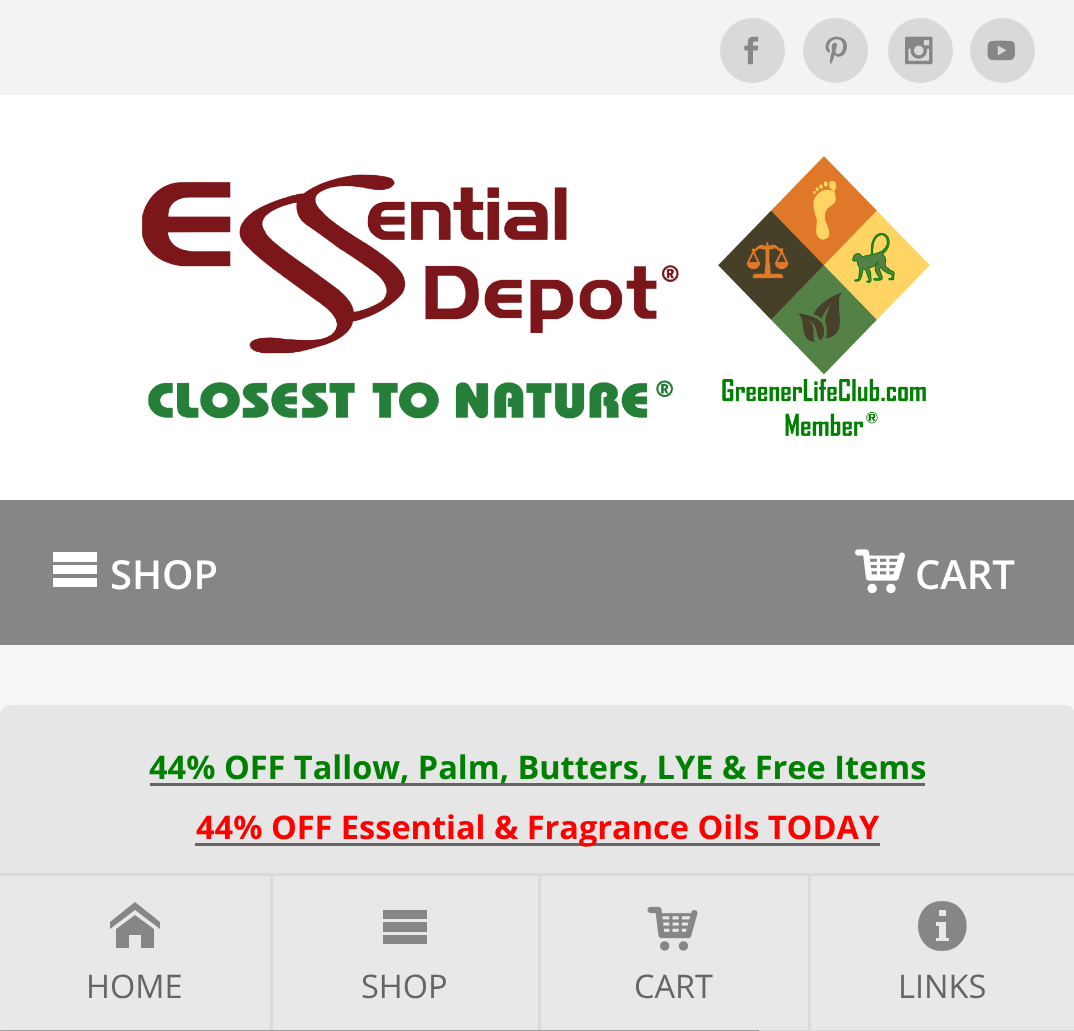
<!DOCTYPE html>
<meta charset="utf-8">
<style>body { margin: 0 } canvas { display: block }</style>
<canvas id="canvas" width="1074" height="1031"></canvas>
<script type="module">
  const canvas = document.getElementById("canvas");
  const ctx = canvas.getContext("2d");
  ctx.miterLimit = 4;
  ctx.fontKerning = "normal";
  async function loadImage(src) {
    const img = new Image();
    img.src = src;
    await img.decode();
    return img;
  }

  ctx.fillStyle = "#f6f6f6";
  ctx.fillRect(0, 0, 1074, 1031);
  ctx.fillStyle = "#ffffff";
  ctx.fillRect(0, 95, 1074, 405);
  ctx.fillStyle = "#f3f3f3";
  ctx.fillRect(0, 0, 1074, 95);
  ctx.fillStyle = "#d9d9d9";
  ctx.beginPath();
  ctx.arc(752.5, 50.5, 32.5, 0, Math.PI * 2);
  ctx.fill();
  ctx.drawImage(await loadImage("img1.png"), 744, 36, 15, 29);
  ctx.beginPath();
  ctx.arc(835.5, 50.5, 32.5, 0, Math.PI * 2);
  ctx.fill();
  ctx.drawImage(await loadImage("img2.png"), 825, 36, 22, 28);
  ctx.beginPath();
  ctx.arc(920.5, 50.5, 32.5, 0, Math.PI * 2);
  ctx.fill();
  ctx.drawImage(await loadImage("img3.png"), 905, 36, 28, 29);
  ctx.beginPath();
  ctx.arc(1002.5, 50.5, 32.5, 0, Math.PI * 2);
  ctx.fill();
  ctx.drawImage(await loadImage("img4.png"), 987, 40, 28, 21);
  ctx.drawImage(await loadImage("img5.png"), 142, 156, 788, 280);
  ctx.fillStyle = "#868686";
  ctx.fillRect(0, 500, 1074, 145);
  ctx.fillStyle = "#ffffff";
  ctx.beginPath();
  ctx.moveTo(53, 552);
  ctx.lineTo(97, 552);
  ctx.lineTo(97, 562);
  ctx.lineTo(53, 562);
  ctx.closePath();
  ctx.moveTo(53, 565);
  ctx.lineTo(97, 565);
  ctx.lineTo(97, 574);
  ctx.lineTo(53, 574);
  ctx.closePath();
  ctx.moveTo(53, 578);
  ctx.lineTo(97, 578);
  ctx.lineTo(97, 587);
  ctx.lineTo(53, 587);
  ctx.closePath();
  ctx.fill();
  ctx.font = "600 40px Open Sans";
  ctx.fillText("SHOP", 110, 589);
  ctx.drawImage(await loadImage("img6.png"), 855, 549, 50, 45);
  ctx.fillText("CART", 915, 589);
  ctx.fillStyle = "#e6e6e6";
  ctx.beginPath();
  ctx.roundRect(0, 705, 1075, 180, 10);
  ctx.fill();
  ctx.fillStyle = "#656565";
  ctx.fillRect(150, 783, 775, 3);
  ctx.font = "bold 32.5px Open Sans";
  ctx.fillStyle = "#008000";
  ctx.fillText("44% OFF Tallow, Palm, Butters, LYE & Free Items", 149, 779);
  ctx.fillStyle = "#656565";
  ctx.fillRect(195, 843, 685, 3);
  ctx.fillStyle = "#ff0000";
  ctx.fillText("44% OFF Essential & Fragrance Oils TODAY", 196, 839);
  ctx.fillStyle = "#e8e8e8";
  ctx.fillRect(0, 877, 1074, 153);
  ctx.fillStyle = "#dadada";
  ctx.fillRect(0, 873, 1074, 3);
  ctx.fillRect(0, 1030, 1074, 1);
  ctx.fillStyle = "#868686";
  ctx.beginPath();
  ctx.moveTo(160, 929);
  ctx.lineTo(135, 910);
  ctx.lineTo(110, 929);
  ctx.lineTo(110, 922);
  ctx.lineTo(135, 902);
  ctx.lineTo(160, 922);
  ctx.closePath();
  ctx.moveTo(154, 929);
  ctx.lineTo(154, 948);
  ctx.lineTo(141, 948);
  ctx.lineTo(141, 935);
  ctx.lineTo(129, 935);
  ctx.lineTo(129, 948);
  ctx.lineTo(116, 948);
  ctx.lineTo(116, 929);
  ctx.lineTo(135, 915);
  ctx.closePath();
  ctx.fill();
  ctx.font = "32.5px Open Sans";
  ctx.fillStyle = "#656565";
  ctx.fillText("HOME", 86, 998);
  ctx.fillStyle = "#dadada";
  ctx.fillRect(270, 875, 3, 155);
  ctx.fillStyle = "#868686";
  ctx.beginPath();
  ctx.moveTo(383, 910);
  ctx.lineTo(427, 910);
  ctx.lineTo(427, 919);
  ctx.lineTo(383, 919);
  ctx.closePath();
  ctx.moveTo(383, 922);
  ctx.lineTo(427, 922);
  ctx.lineTo(427, 932);
  ctx.lineTo(383, 932);
  ctx.closePath();
  ctx.moveTo(383, 935);
  ctx.lineTo(427, 935);
  ctx.lineTo(427, 944);
  ctx.lineTo(383, 944);
  ctx.closePath();
  ctx.fill();
  ctx.fillStyle = "#656565";
  ctx.fillText("SHOP", 361, 998);
  ctx.fillStyle = "#dadada";
  ctx.fillRect(538, 875, 3, 155);
  ctx.drawImage(await loadImage("img7.png"), 647, 906, 51, 45);
  ctx.fillStyle = "#656565";
  ctx.fillText("CART", 634, 998);
  ctx.fillStyle = "#dadada";
  ctx.fillRect(808, 875, 3, 155);
  ctx.fillStyle = "#868686";
  ctx.beginPath();
  ctx.moveTo(942, 901);
  ctx.bezierCurveTo(910, 901, 910, 951, 942, 951);
  ctx.bezierCurveTo(975, 951, 975, 901, 942, 901);
  ctx.closePath();
  ctx.moveTo(939, 910);
  ctx.lineTo(946, 910);
  ctx.lineTo(946, 916);
  ctx.lineTo(939, 916);
  ctx.closePath();
  ctx.moveTo(949, 941);
  ctx.lineTo(936, 941);
  ctx.lineTo(936, 938);
  ctx.lineTo(939, 938);
  ctx.lineTo(939, 926);
  ctx.lineTo(936, 926);
  ctx.lineTo(936, 922);
  ctx.lineTo(946, 922);
  ctx.lineTo(946, 938);
  ctx.lineTo(949, 938);
  ctx.closePath();
  ctx.fill();
  ctx.fillStyle = "#656565";
  ctx.fillText("LINKS", 898, 998);
  ctx.fillStyle = "#9f9f9f";
  ctx.beginPath();
  ctx.moveTo(0, 1030);
  ctx.lineTo(760, 1030);
  ctx.lineTo(755, 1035);
  ctx.lineTo(5, 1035);
  ctx.closePath();
  ctx.fill();
  ctx.beginPath();
  ctx.moveTo(0, 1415);
  ctx.lineTo(0, 1030);
  ctx.lineTo(5, 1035);
  ctx.lineTo(5, 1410);
  ctx.closePath();
  ctx.fill();
  ctx.fillStyle = "#eeeeee";
  ctx.beginPath();
  ctx.moveTo(760, 1030);
  ctx.lineTo(760, 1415);
  ctx.lineTo(755, 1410);
  ctx.lineTo(755, 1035);
  ctx.closePath();
  ctx.fill();
</script>
